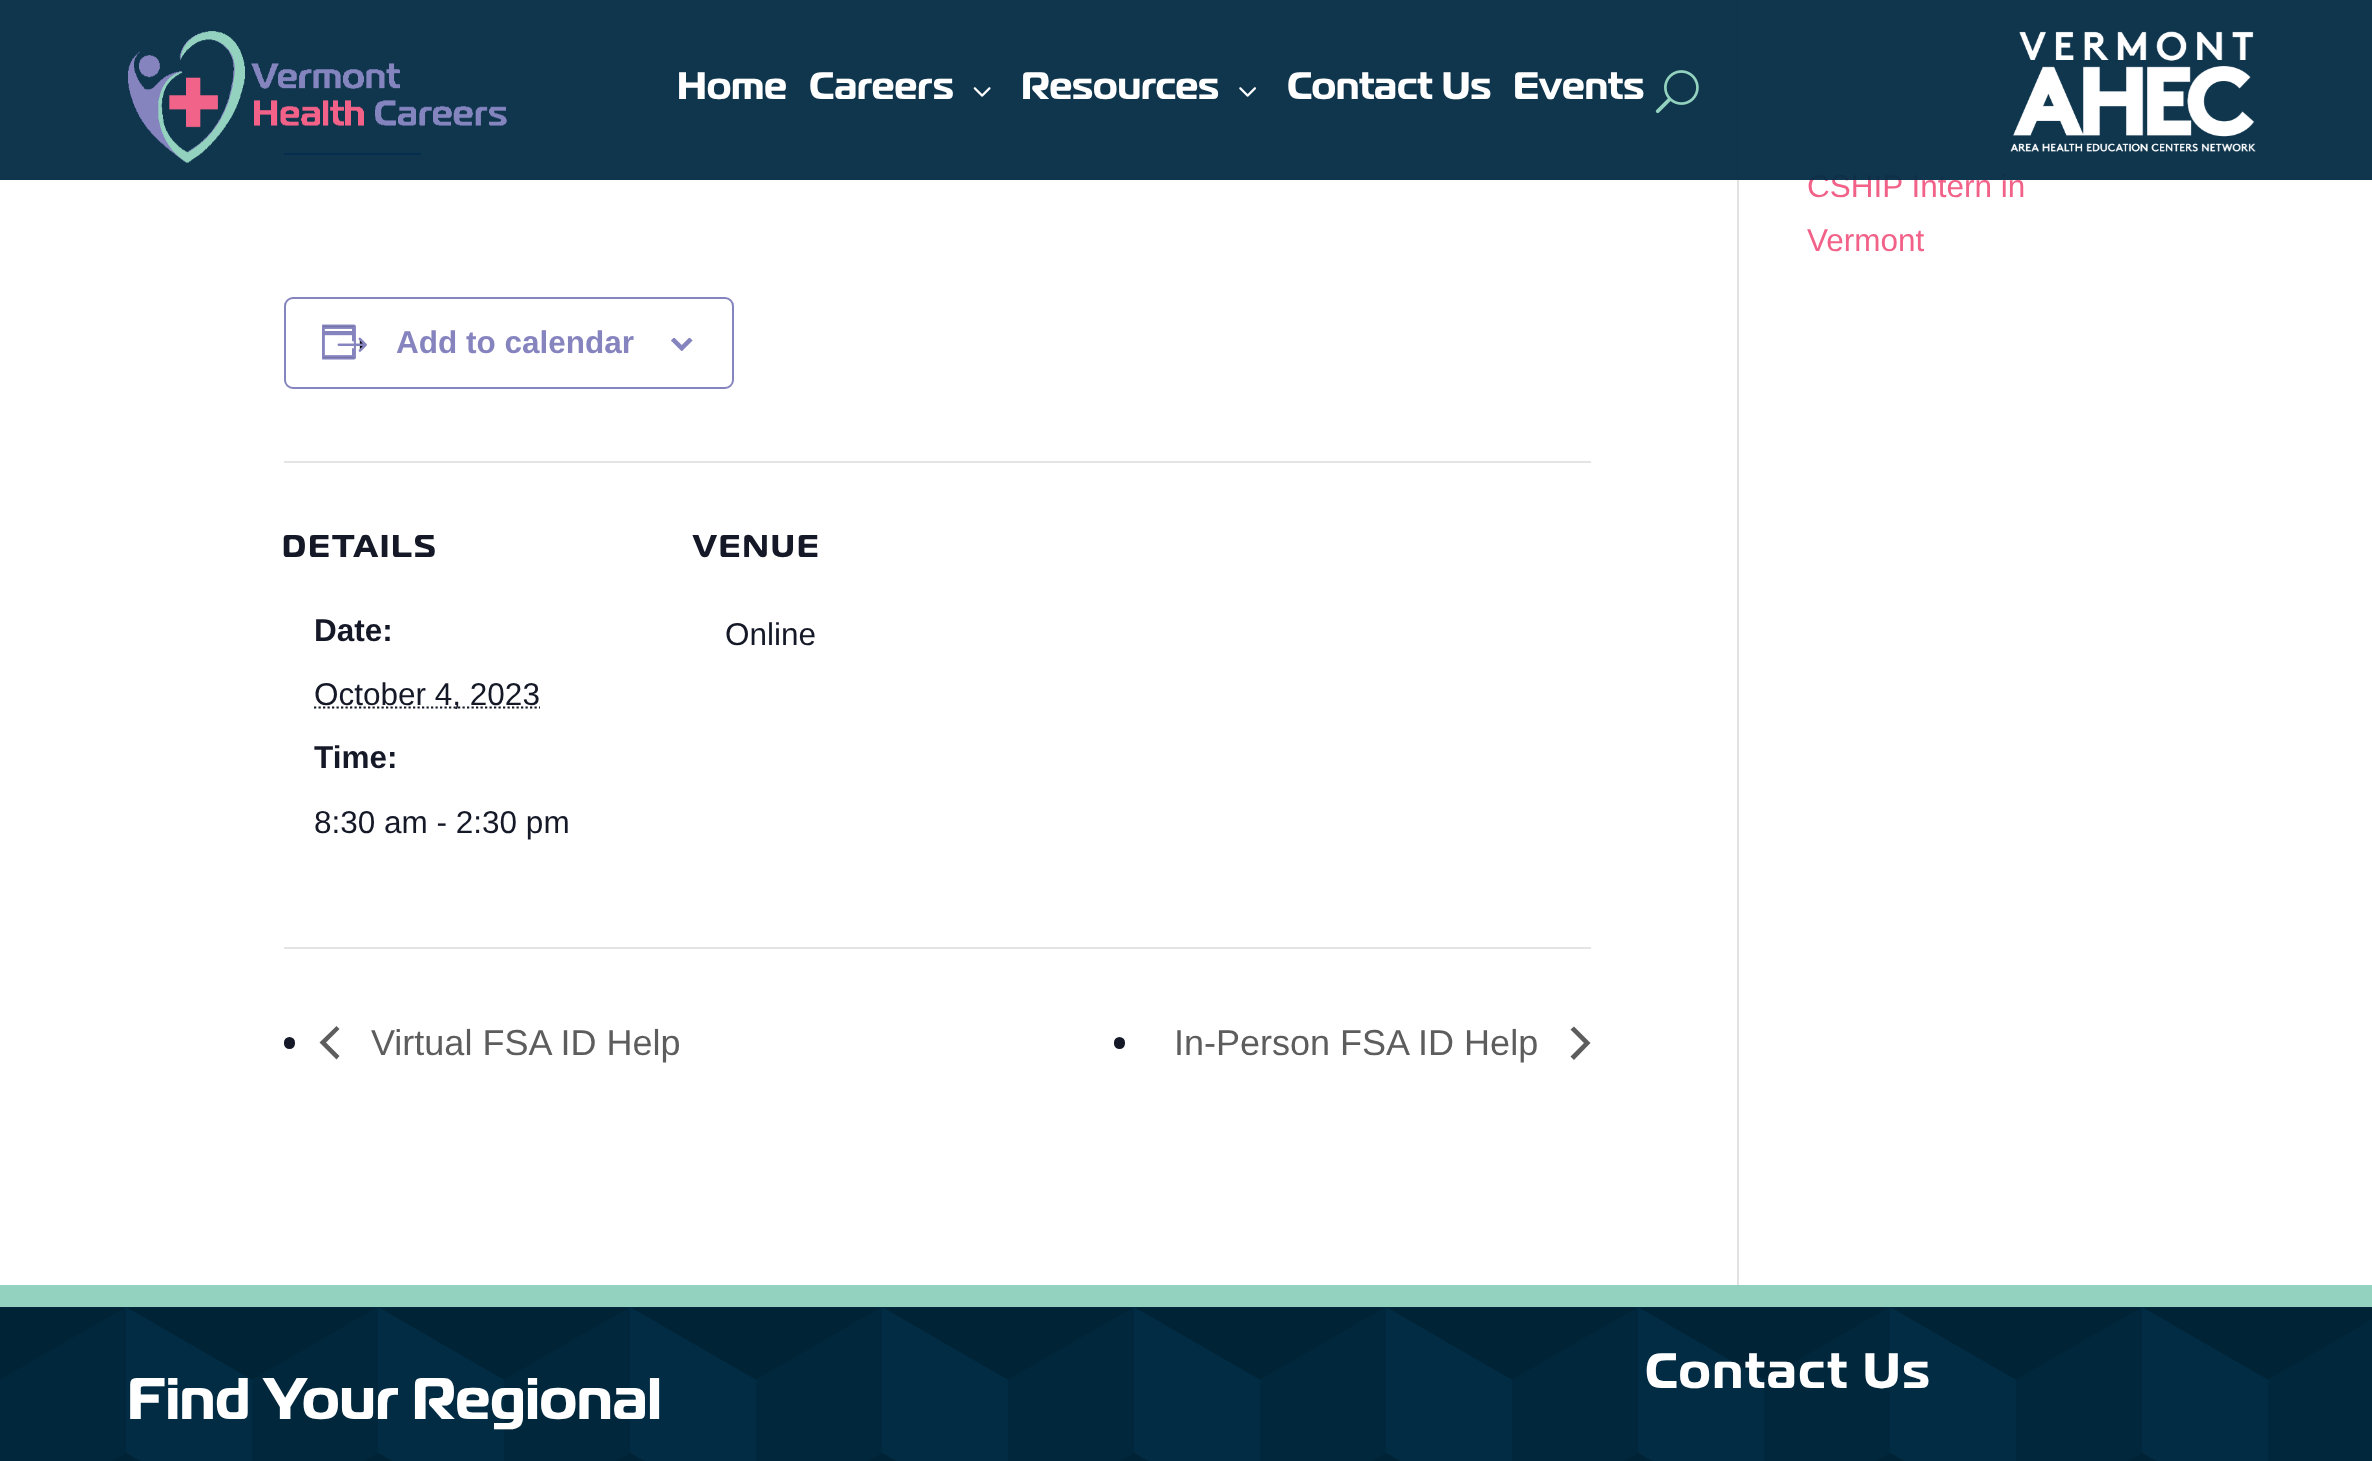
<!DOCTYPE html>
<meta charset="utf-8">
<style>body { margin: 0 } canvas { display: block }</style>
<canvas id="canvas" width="2372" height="1461"></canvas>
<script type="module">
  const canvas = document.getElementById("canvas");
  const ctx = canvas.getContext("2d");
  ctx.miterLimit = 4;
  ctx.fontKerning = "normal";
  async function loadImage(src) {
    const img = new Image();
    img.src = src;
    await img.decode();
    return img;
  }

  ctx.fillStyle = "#ffffff";
  ctx.fillRect(0, 0, 2372, 1461);
  ctx.fillStyle = "#e2e2e2";
  ctx.fillRect(1737, 0, 2, 1285);
  ctx.font = "31.5px Liberation Sans";
  ctx.fillStyle = "#f16188";
  ctx.fillText("CSHIP Intern in", 1807, 197);
  ctx.fillStyle = "#334aff";
  ctx.fillRect(284, 153, 137, 2);
  ctx.fillStyle = "rgba(2, 44, 68, 0.78)";
  ctx.fillRect(0, 0, 2372, 180);
  ctx.fillStyle = "rgba(2, 44, 68, 0.76)";
  ctx.fillRect(0, 0, 2372, 180);
  ctx.drawImage(await loadImage("img1.png"), 128, 31, 379, 132);
  ctx.font = "bold 38.25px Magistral";
  ctx.fillStyle = "#ffffff";
  ctx.fillText("Home", 677, 99);
  ctx.fillText("Careers", 809, 99);
  ctx.drawImage(await loadImage("img2.png"), 973, 87, 18, 10);
  ctx.fillText("Resources", 1021, 99);
  ctx.drawImage(await loadImage("img3.png"), 1239, 87, 17, 10);
  ctx.fillText("Contact Us", 1287, 99);
  ctx.fillText("Events", 1513, 99);
  ctx.drawImage(await loadImage("img4.png"), 1655, 70, 44, 44);
  ctx.drawImage(await loadImage("img5.png"), 2010, 31, 246, 121);
  ctx.font = "31.5px Liberation Sans";
  ctx.fillStyle = "#f16188";
  ctx.fillText("Vermont", 1807, 251);
  ctx.beginPath();
  ctx.roundRect(285, 298, 448, 90, 8);
  ctx.strokeStyle = "#8684bf";
  ctx.lineWidth = 2;
  ctx.stroke();
  ctx.drawImage(await loadImage("img6.png"), 322, 324, 45, 36);
  ctx.font = "bold 31.5px Liberation Sans";
  ctx.fillStyle = "#8684bf";
  ctx.fillText("Add to calendar", 396, 353);
  ctx.drawImage(await loadImage("img7.png"), 671, 338, 22, 13);
  ctx.fillStyle = "#e4e4e4";
  ctx.fillRect(284, 461, 1307, 2);
  ctx.letterSpacing = "2.25px";
  ctx.font = "bold 31.5px Magistral";
  ctx.fillStyle = "#141827";
  ctx.fillText("DETAILS", 282, 557);
  ctx.letterSpacing = "0px";
  ctx.font = "bold 31.5px Liberation Sans";
  ctx.fillText("Date:", 314, 641);
  ctx.beginPath();
  ctx.moveTo(314, 707.5);
  ctx.lineTo(540, 707.5);
  ctx.strokeStyle = "#141827";
  ctx.lineWidth = 2.2;
  ctx.setLineDash([2.25, 2.25]);
  ctx.stroke();
  ctx.font = "31.5px Liberation Sans";
  ctx.fillText("October 4, 2023", 314, 705);
  ctx.font = "bold 31.5px Liberation Sans";
  ctx.fillText("Time:", 314, 768);
  ctx.font = "31.5px Liberation Sans";
  ctx.fillText("8:30 am - 2:30 pm", 314, 833);
  ctx.letterSpacing = "2.25px";
  ctx.font = "bold 31.5px Magistral";
  ctx.fillText("VENUE", 693, 557);
  ctx.letterSpacing = "0px";
  ctx.font = "31.5px Liberation Sans";
  ctx.fillText("Online", 725, 645);
  ctx.fillStyle = "#e4e4e4";
  ctx.fillRect(284, 947, 1307, 2);
  ctx.fillStyle = "#141827";
  ctx.beginPath();
  ctx.roundRect(284, 1037, 11, 12, 5.5);
  ctx.fill();
  ctx.fillStyle = "#5d5d5d";
  ctx.beginPath();
  ctx.moveTo(339.5, 1056);
  ctx.lineTo(336.5, 1059.5);
  ctx.lineTo(319.5, 1042.5);
  ctx.lineTo(336.5, 1026);
  ctx.lineTo(339.5, 1029);
  ctx.lineTo(326, 1042.5);
  ctx.closePath();
  ctx.fill();
  ctx.font = "36px Liberation Sans";
  ctx.fillText("Virtual FSA ID Help", 371, 1055);
  ctx.fillStyle = "#141827";
  ctx.beginPath();
  ctx.roundRect(1114, 1037, 11, 12, 5.5);
  ctx.fill();
  ctx.fillStyle = "#5d5d5d";
  ctx.fillText("In-Person FSA ID Help", 1174, 1055);
  ctx.beginPath();
  ctx.moveTo(1570.5, 1029.5);
  ctx.lineTo(1574, 1026.5);
  ctx.lineTo(1590.5, 1043);
  ctx.lineTo(1574, 1060);
  ctx.lineTo(1570.5, 1056.5);
  ctx.lineTo(1584, 1043);
  ctx.closePath();
  ctx.fill();
  ctx.fillStyle = "#022c44";
  ctx.fillRect(0, 1307, 2372, 154);
  ctx.fillStyle = "#93d2be";
  ctx.fillRect(0, 1285, 2372, 22);
  ctx.drawImage(await loadImage("img8.png"), 0, 1307, 2372, 154);
  ctx.letterSpacing = "2.25px";
  ctx.font = "bold 49.5px Magistral";
  ctx.fillStyle = "#ffffff";
  ctx.fillText("Contact Us", 1645, 1388);
  ctx.letterSpacing = "0px";
  ctx.font = "bold 58.5px Magistral";
  ctx.fillText("Find Your Regional", 127, 1419);
</script>
